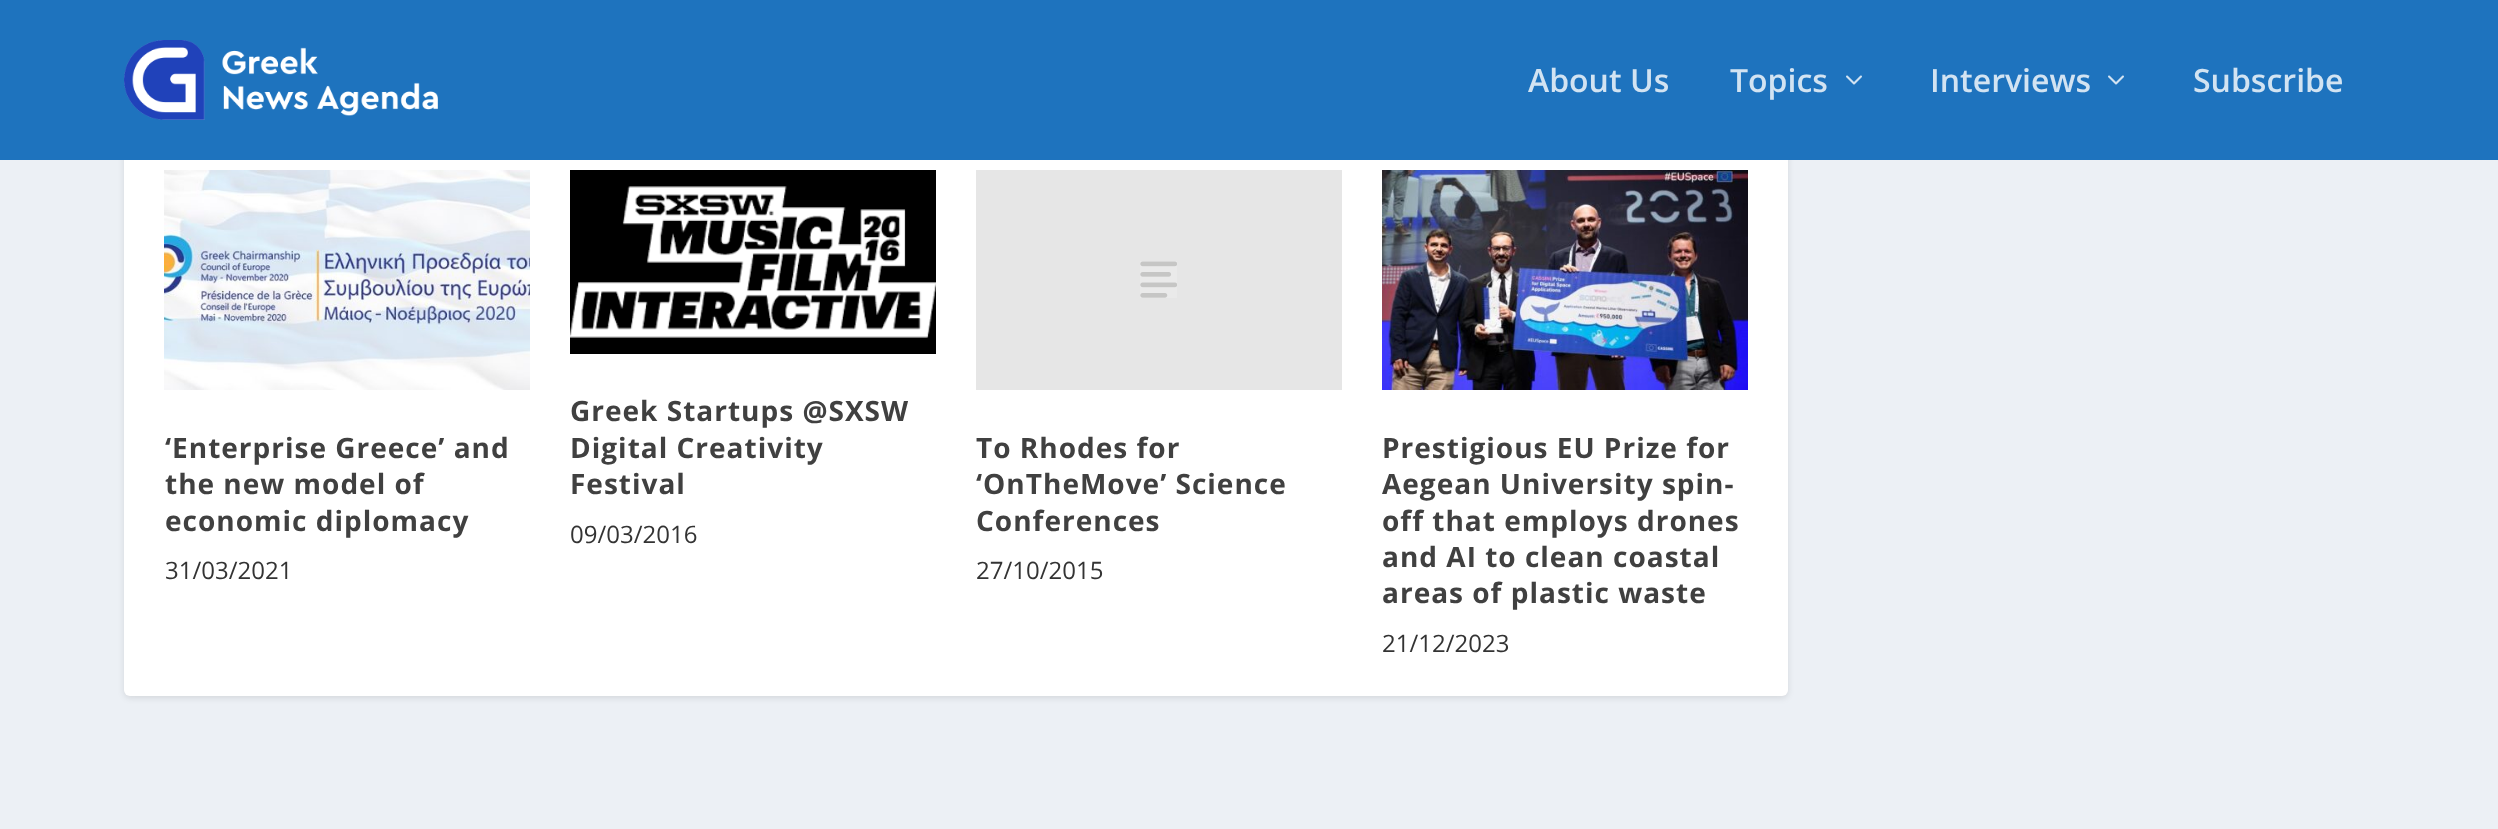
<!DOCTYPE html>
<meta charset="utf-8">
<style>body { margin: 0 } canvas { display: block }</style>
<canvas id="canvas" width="2498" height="829"></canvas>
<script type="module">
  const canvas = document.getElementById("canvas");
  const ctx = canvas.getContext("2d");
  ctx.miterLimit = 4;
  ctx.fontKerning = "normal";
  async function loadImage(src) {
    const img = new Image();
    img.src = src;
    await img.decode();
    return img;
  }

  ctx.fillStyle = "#ecf0f5";
  ctx.fillRect(0, 0, 2498, 829);
  ctx.fillStyle = "rgba(0, 0, 0, 0.1)";
  ctx.filter = "blur(3px)";
  ctx.beginPath();
  ctx.roundRect(124, 48, 1664, 650, 6);
  ctx.fill();
  ctx.filter = "none";
  ctx.fillStyle = "#ffffff";
  ctx.beginPath();
  ctx.roundRect(124, 46, 1664, 650, 6);
  ctx.fill();
  ctx.fillStyle = "#1e73be";
  ctx.fillRect(0, 0, 2498, 160);
  ctx.drawImage(await loadImage("img1.png"), 124, 40, 314, 80);
  ctx.font = "600 32px Open Sans";
  ctx.fillStyle = "#d2e3f2";
  ctx.fillText("About Us", 1528, 92);
  ctx.fillText("Topics", 1730, 92);
  ctx.drawImage(await loadImage("img2.png"), 1846, 75, 16, 10);
  ctx.fillText("Interviews", 1930, 92);
  ctx.drawImage(await loadImage("img2.png"), 2108, 75, 16, 10);
  ctx.fillText("Subscribe", 2193, 92);
  ctx.drawImage(await loadImage("img3.png"), 164, 170, 366, 220);
  ctx.letterSpacing = "1px";
  ctx.font = "bold 28px Open Sans";
  ctx.fillStyle = "#404040";
  ctx.fillText("‘Enterprise Greece’ and", 165, 458);
  ctx.fillText("the new model of", 165, 494);
  ctx.fillText("economic diplomacy", 165, 531);
  ctx.letterSpacing = "0px";
  ctx.font = "24px Open Sans";
  ctx.fillStyle = "#333333";
  ctx.fillText("31/03/2021", 165, 579);
  ctx.drawImage(await loadImage("img4.png"), 570, 170, 366, 184);
  ctx.letterSpacing = "1px";
  ctx.font = "bold 28px Open Sans";
  ctx.fillStyle = "#404040";
  ctx.fillText("Greek Startups @SXSW", 570, 421);
  ctx.fillText("Digital Creativity", 570, 458);
  ctx.fillText("Festival", 570, 494);
  ctx.letterSpacing = "0px";
  ctx.font = "24px Open Sans";
  ctx.fillStyle = "#333333";
  ctx.fillText("09/03/2016", 570, 543);
  ctx.fillStyle = "#e6e6e6";
  ctx.fillRect(976, 170, 366, 220);
  ctx.drawImage(await loadImage("img5.png"), 1140, 261, 37, 37);
  ctx.letterSpacing = "1px";
  ctx.font = "bold 28px Open Sans";
  ctx.fillStyle = "#404040";
  ctx.fillText("To Rhodes for", 976, 458);
  ctx.fillText("‘OnTheMove’ Science", 976, 494);
  ctx.fillText("Conferences", 976, 531);
  ctx.letterSpacing = "0px";
  ctx.font = "24px Open Sans";
  ctx.fillStyle = "#333333";
  ctx.fillText("27/10/2015", 976, 579);
  ctx.drawImage(await loadImage("img6.png"), 1382, 170, 366, 220);
  ctx.letterSpacing = "1px";
  ctx.font = "bold 28px Open Sans";
  ctx.fillStyle = "#404040";
  ctx.fillText("Prestigious EU Prize for", 1382, 458);
  ctx.fillText("Aegean University spin-", 1382, 494);
  ctx.fillText("off that employs drones", 1382, 531);
  ctx.fillText("and AI to clean coastal", 1382, 567);
  ctx.fillText("areas of plastic waste", 1382, 603);
  ctx.letterSpacing = "0px";
  ctx.font = "24px Open Sans";
  ctx.fillStyle = "#333333";
  ctx.fillText("21/12/2023", 1382, 652);
</script>
